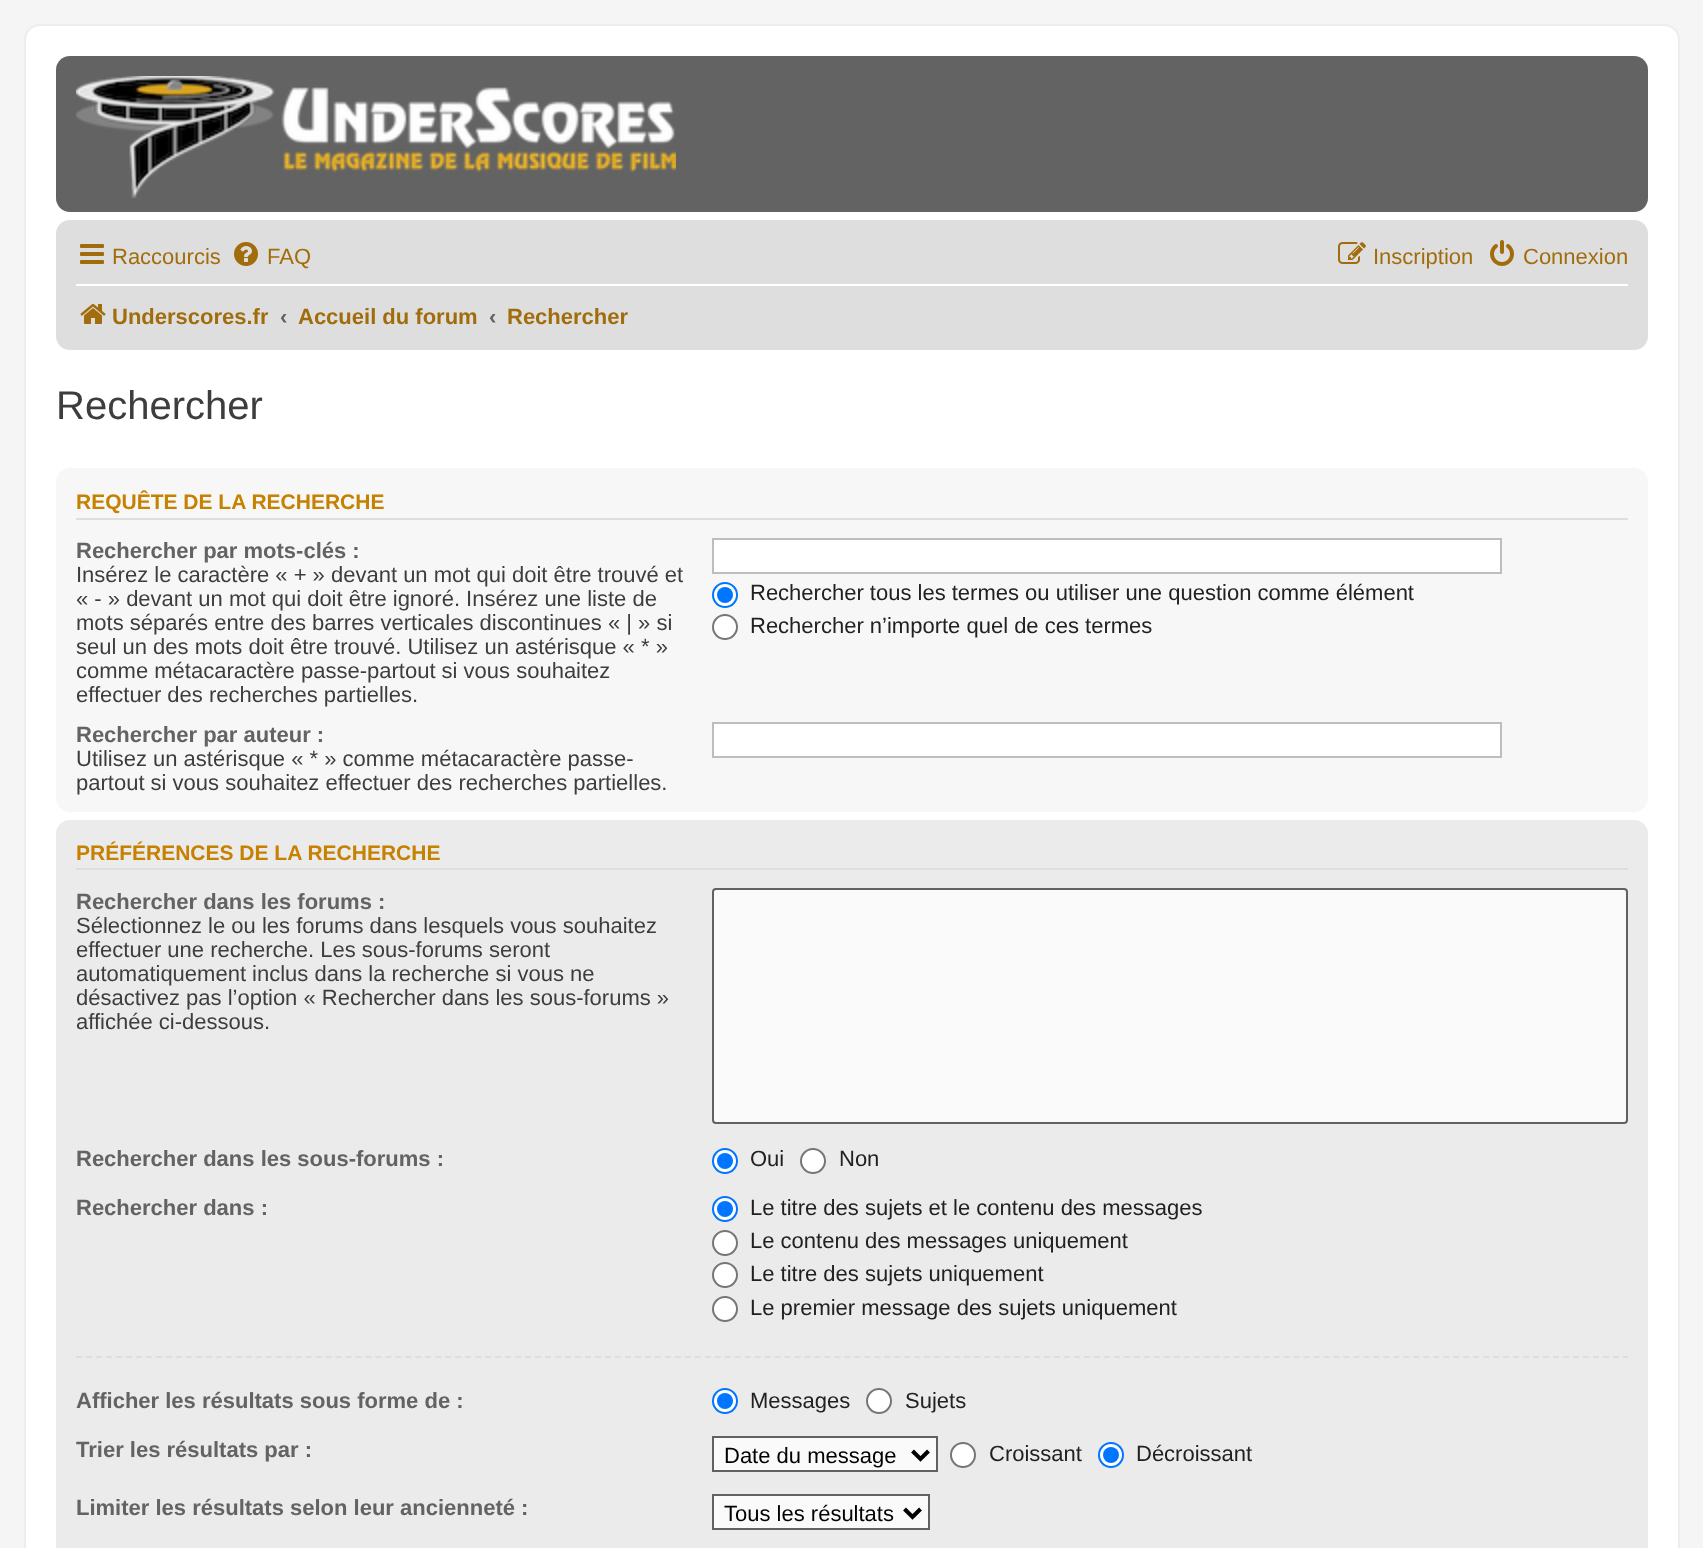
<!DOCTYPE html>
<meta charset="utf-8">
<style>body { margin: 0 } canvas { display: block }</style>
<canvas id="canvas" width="1703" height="1548"></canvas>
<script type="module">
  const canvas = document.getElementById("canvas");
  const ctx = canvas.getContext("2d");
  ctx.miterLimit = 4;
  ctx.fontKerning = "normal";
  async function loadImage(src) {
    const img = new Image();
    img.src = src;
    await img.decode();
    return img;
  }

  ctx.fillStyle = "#f5f5f5";
  ctx.fillRect(0, 0, 1703, 1548);
  ctx.fillStyle = "#ffffff";
  ctx.beginPath();
  ctx.roundRect(25, 25, 1654, 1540, 15);
  ctx.fill();
  ctx.strokeStyle = "#ededed";
  ctx.lineWidth = 2;
  ctx.stroke();
  ctx.fillStyle = "#636363";
  ctx.beginPath();
  ctx.roundRect(56, 56, 1592, 156, 14);
  ctx.fill();
  ctx.drawImage(await loadImage("img1.png"), 76, 76, 600, 122);
  ctx.fillStyle = "#dedede";
  ctx.beginPath();
  ctx.roundRect(56, 220, 1592, 130, 14);
  ctx.fill();
  ctx.drawImage(await loadImage("img2.png"), 80, 244, 24, 20);
  ctx.font = "22px Liberation Sans";
  ctx.fillStyle = "#a16d0c";
  ctx.fillText("Raccourcis", 112, 264);
  ctx.drawImage(await loadImage("img3.png"), 234, 242, 24, 24);
  ctx.fillText("FAQ", 267, 264);
  ctx.drawImage(await loadImage("img4.png"), 1338, 242, 28, 22);
  ctx.fillText("Inscription", 1373, 264);
  ctx.drawImage(await loadImage("img5.png"), 1490, 240, 24, 26);
  ctx.fillText("Connexion", 1523, 264);
  ctx.fillStyle = "#ffffff";
  ctx.fillRect(76, 284, 1552, 2);
  ctx.drawImage(await loadImage("img6.png"), 80, 304, 26, 20);
  ctx.save();
  ctx.beginPath();
  ctx.rect(76, 292, 192, 48);
  ctx.clip();
  ctx.font = "bold 22px Liberation Sans";
  ctx.fillStyle = "#a16d0c";
  ctx.fillText("Underscores.fr", 112, 324);
  ctx.restore();
  ctx.font = "bold 22px Liberation Sans";
  ctx.fillStyle = "#636363";
  ctx.fillText("‹", 280, 324);
  ctx.fillStyle = "#a16d0c";
  ctx.fillText("Accueil du forum", 298, 324);
  ctx.fillStyle = "#636363";
  ctx.fillText("‹", 489, 324);
  ctx.fillStyle = "#a16d0c";
  ctx.fillText("Rechercher", 507, 324);
  ctx.font = "40px Liberation Sans";
  ctx.fillStyle = "#3d3d3d";
  ctx.fillText("Rechercher", 56, 419);
  ctx.fillStyle = "#f7f7f7";
  ctx.beginPath();
  ctx.roundRect(56, 468, 1592, 344, 14);
  ctx.fill();
  ctx.fillStyle = "#dedede";
  ctx.fillRect(76, 518, 1552, 2);
  ctx.font = "bold 21px Liberation Sans";
  ctx.fillStyle = "#c78100";
  ctx.fillText("REQUÊTE DE LA RECHERCHE", 76, 509);
  ctx.font = "bold 22px Liberation Sans";
  ctx.fillStyle = "#636363";
  ctx.fillText("Rechercher par mots-clés :", 76, 558);
  ctx.font = "22px Liberation Sans";
  ctx.fillStyle = "#3d3d3d";
  ctx.fillText("Insérez le caractère « + » devant un mot qui doit être trouvé et", 76, 582);
  ctx.fillText("« - » devant un mot qui doit être ignoré. Insérez une liste de", 76, 606);
  ctx.fillText("mots séparés entre des barres verticales discontinues « | » si", 76, 630);
  ctx.fillText("seul un des mots doit être trouvé. Utilisez un astérisque « * »", 76, 654);
  ctx.fillText("comme métacaractère passe-partout si vous souhaitez", 76, 678);
  ctx.fillText("effectuer des recherches partielles.", 76, 702);
  ctx.fillStyle = "#ffffff";
  ctx.beginPath();
  ctx.rect(713, 539, 788, 34);
  ctx.fill();
  ctx.strokeStyle = "#bdbdbd";
  ctx.stroke();
  ctx.beginPath();
  ctx.arc(725, 595, 12, 0, Math.PI * 2);
  ctx.fill();
  ctx.strokeStyle = "#0075ff";
  ctx.stroke();
  ctx.fillStyle = "#0075ff";
  ctx.beginPath();
  ctx.arc(725, 595, 8, 0, Math.PI * 2);
  ctx.fill();
  ctx.fillStyle = "#212121";
  ctx.fillText("Rechercher tous les termes ou utiliser une question comme élément", 750, 600);
  ctx.fillStyle = "#ffffff";
  ctx.beginPath();
  ctx.arc(725, 627, 12, 0, Math.PI * 2);
  ctx.fill();
  ctx.strokeStyle = "#767676";
  ctx.stroke();
  ctx.fillStyle = "#212121";
  ctx.fillText("Rechercher n’importe quel de ces termes", 750, 633);
  ctx.font = "bold 22px Liberation Sans";
  ctx.fillStyle = "#636363";
  ctx.fillText("Rechercher par auteur :", 76, 742);
  ctx.font = "22px Liberation Sans";
  ctx.fillStyle = "#3d3d3d";
  ctx.fillText("Utilisez un astérisque « * » comme métacaractère passe-", 76, 766);
  ctx.fillText("partout si vous souhaitez effectuer des recherches partielles.", 76, 790);
  ctx.fillStyle = "#ffffff";
  ctx.beginPath();
  ctx.rect(713, 723, 788, 34);
  ctx.fill();
  ctx.strokeStyle = "#bdbdbd";
  ctx.stroke();
  ctx.fillStyle = "#ebebeb";
  ctx.beginPath();
  ctx.roundRect(56, 820, 1592, 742, 14);
  ctx.fill();
  ctx.fillStyle = "#dedede";
  ctx.fillRect(76, 868, 1552, 2);
  ctx.font = "bold 21px Liberation Sans";
  ctx.fillStyle = "#c78100";
  ctx.fillText("PRÉFÉRENCES DE LA RECHERCHE", 76, 860);
  ctx.font = "bold 22px Liberation Sans";
  ctx.fillStyle = "#636363";
  ctx.fillText("Rechercher dans les forums :", 76, 909);
  ctx.font = "22px Liberation Sans";
  ctx.fillStyle = "#3d3d3d";
  ctx.fillText("Sélectionnez le ou les forums dans lesquels vous souhaitez", 76, 933);
  ctx.fillText("effectuer une recherche. Les sous-forums seront", 76, 957);
  ctx.fillText("automatiquement inclus dans la recherche si vous ne", 76, 981);
  ctx.fillText("désactivez pas l’option « Rechercher dans les sous-forums »", 76, 1005);
  ctx.fillText("affichée ci-dessous.", 76, 1029);
  ctx.fillStyle = "#fafafa";
  ctx.beginPath();
  ctx.roundRect(713, 889, 914, 234, 3);
  ctx.fill();
  ctx.strokeStyle = "#616161";
  ctx.stroke();
  ctx.font = "bold 22px Liberation Sans";
  ctx.fillStyle = "#636363";
  ctx.fillText("Rechercher dans les sous-forums :", 76, 1166);
  ctx.fillStyle = "#ffffff";
  ctx.beginPath();
  ctx.arc(725, 1161, 12, 0, Math.PI * 2);
  ctx.fill();
  ctx.strokeStyle = "#0075ff";
  ctx.stroke();
  ctx.fillStyle = "#0075ff";
  ctx.beginPath();
  ctx.arc(725, 1161, 8, 0, Math.PI * 2);
  ctx.fill();
  ctx.font = "22px Liberation Sans";
  ctx.fillStyle = "#212121";
  ctx.fillText("Oui", 750, 1166);
  ctx.fillStyle = "#ffffff";
  ctx.beginPath();
  ctx.arc(813, 1161, 12, 0, Math.PI * 2);
  ctx.fill();
  ctx.strokeStyle = "#767676";
  ctx.stroke();
  ctx.fillStyle = "#212121";
  ctx.fillText("Non", 839, 1166);
  ctx.font = "bold 22px Liberation Sans";
  ctx.fillStyle = "#636363";
  ctx.fillText("Rechercher dans :", 76, 1215);
  ctx.fillStyle = "#ffffff";
  ctx.beginPath();
  ctx.arc(725, 1209, 12, 0, Math.PI * 2);
  ctx.fill();
  ctx.strokeStyle = "#0075ff";
  ctx.stroke();
  ctx.fillStyle = "#0075ff";
  ctx.beginPath();
  ctx.arc(725, 1209, 8, 0, Math.PI * 2);
  ctx.fill();
  ctx.font = "22px Liberation Sans";
  ctx.fillStyle = "#212121";
  ctx.fillText("Le titre des sujets et le contenu des messages", 750, 1215);
  ctx.fillStyle = "#ffffff";
  ctx.beginPath();
  ctx.arc(725, 1243, 12, 0, Math.PI * 2);
  ctx.fill();
  ctx.strokeStyle = "#767676";
  ctx.stroke();
  ctx.fillStyle = "#212121";
  ctx.fillText("Le contenu des messages uniquement", 750, 1248);
  ctx.fillStyle = "#ffffff";
  ctx.beginPath();
  ctx.arc(725, 1275, 12, 0, Math.PI * 2);
  ctx.fill();
  ctx.stroke();
  ctx.fillStyle = "#212121";
  ctx.fillText("Le titre des sujets uniquement", 750, 1281);
  ctx.fillStyle = "#ffffff";
  ctx.beginPath();
  ctx.arc(725, 1309, 12, 0, Math.PI * 2);
  ctx.fill();
  ctx.stroke();
  ctx.fillStyle = "#212121";
  ctx.fillText("Le premier message des sujets uniquement", 750, 1315);
  ctx.beginPath();
  ctx.moveTo(76, 1357);
  ctx.lineTo(1628, 1357);
  ctx.strokeStyle = "#dedede";
  ctx.setLineDash([6, 3.98]);
  ctx.stroke();
  ctx.font = "bold 22px Liberation Sans";
  ctx.fillStyle = "#636363";
  ctx.fillText("Afficher les résultats sous forme de :", 76, 1408);
  ctx.fillStyle = "#ffffff";
  ctx.beginPath();
  ctx.arc(725, 1401, 12, 0, Math.PI * 2);
  ctx.fill();
  ctx.strokeStyle = "#0075ff";
  ctx.setLineDash([]);
  ctx.stroke();
  ctx.fillStyle = "#0075ff";
  ctx.beginPath();
  ctx.arc(725, 1401, 8, 0, Math.PI * 2);
  ctx.fill();
  ctx.font = "22px Liberation Sans";
  ctx.fillStyle = "#212121";
  ctx.fillText("Messages", 750, 1408);
  ctx.fillStyle = "#ffffff";
  ctx.beginPath();
  ctx.arc(879, 1401, 12, 0, Math.PI * 2);
  ctx.fill();
  ctx.strokeStyle = "#767676";
  ctx.stroke();
  ctx.fillStyle = "#212121";
  ctx.fillText("Sujets", 905, 1408);
  ctx.font = "bold 22px Liberation Sans";
  ctx.fillStyle = "#636363";
  ctx.fillText("Trier les résultats par :", 76, 1457);
  ctx.fillStyle = "#fafafa";
  ctx.beginPath();
  ctx.rect(713, 1437, 224, 34);
  ctx.fill();
  ctx.strokeStyle = "#616161";
  ctx.stroke();
  ctx.beginPath();
  ctx.moveTo(912.5, 1451);
  ctx.lineTo(920.5, 1459);
  ctx.lineTo(928.5, 1451);
  ctx.strokeStyle = "#000000";
  ctx.lineWidth = 4;
  ctx.stroke();
  ctx.font = "22px Liberation Sans";
  ctx.fillStyle = "#000000";
  ctx.fillText("Date du message", 724, 1463);
  ctx.fillStyle = "#ffffff";
  ctx.beginPath();
  ctx.arc(963, 1455, 12, 0, Math.PI * 2);
  ctx.fill();
  ctx.strokeStyle = "#767676";
  ctx.lineWidth = 2;
  ctx.stroke();
  ctx.fillStyle = "#212121";
  ctx.fillText("Croissant", 989, 1461);
  ctx.fillStyle = "#ffffff";
  ctx.beginPath();
  ctx.arc(1111, 1455, 12, 0, Math.PI * 2);
  ctx.fill();
  ctx.strokeStyle = "#0075ff";
  ctx.stroke();
  ctx.fillStyle = "#0075ff";
  ctx.beginPath();
  ctx.arc(1111, 1455, 8, 0, Math.PI * 2);
  ctx.fill();
  ctx.fillStyle = "#212121";
  ctx.fillText("Décroissant", 1136, 1461);
  ctx.font = "bold 22px Liberation Sans";
  ctx.fillStyle = "#636363";
  ctx.fillText("Limiter les résultats selon leur ancienneté :", 76, 1515);
  ctx.fillStyle = "#fafafa";
  ctx.beginPath();
  ctx.rect(713, 1495, 216, 34);
  ctx.fill();
  ctx.strokeStyle = "#616161";
  ctx.stroke();
  ctx.beginPath();
  ctx.moveTo(904.5, 1509);
  ctx.lineTo(912.5, 1517);
  ctx.lineTo(920.5, 1509);
  ctx.strokeStyle = "#000000";
  ctx.lineWidth = 4;
  ctx.stroke();
  ctx.font = "22px Liberation Sans";
  ctx.fillStyle = "#000000";
  ctx.fillText("Tous les résultats", 724, 1521);
</script>
